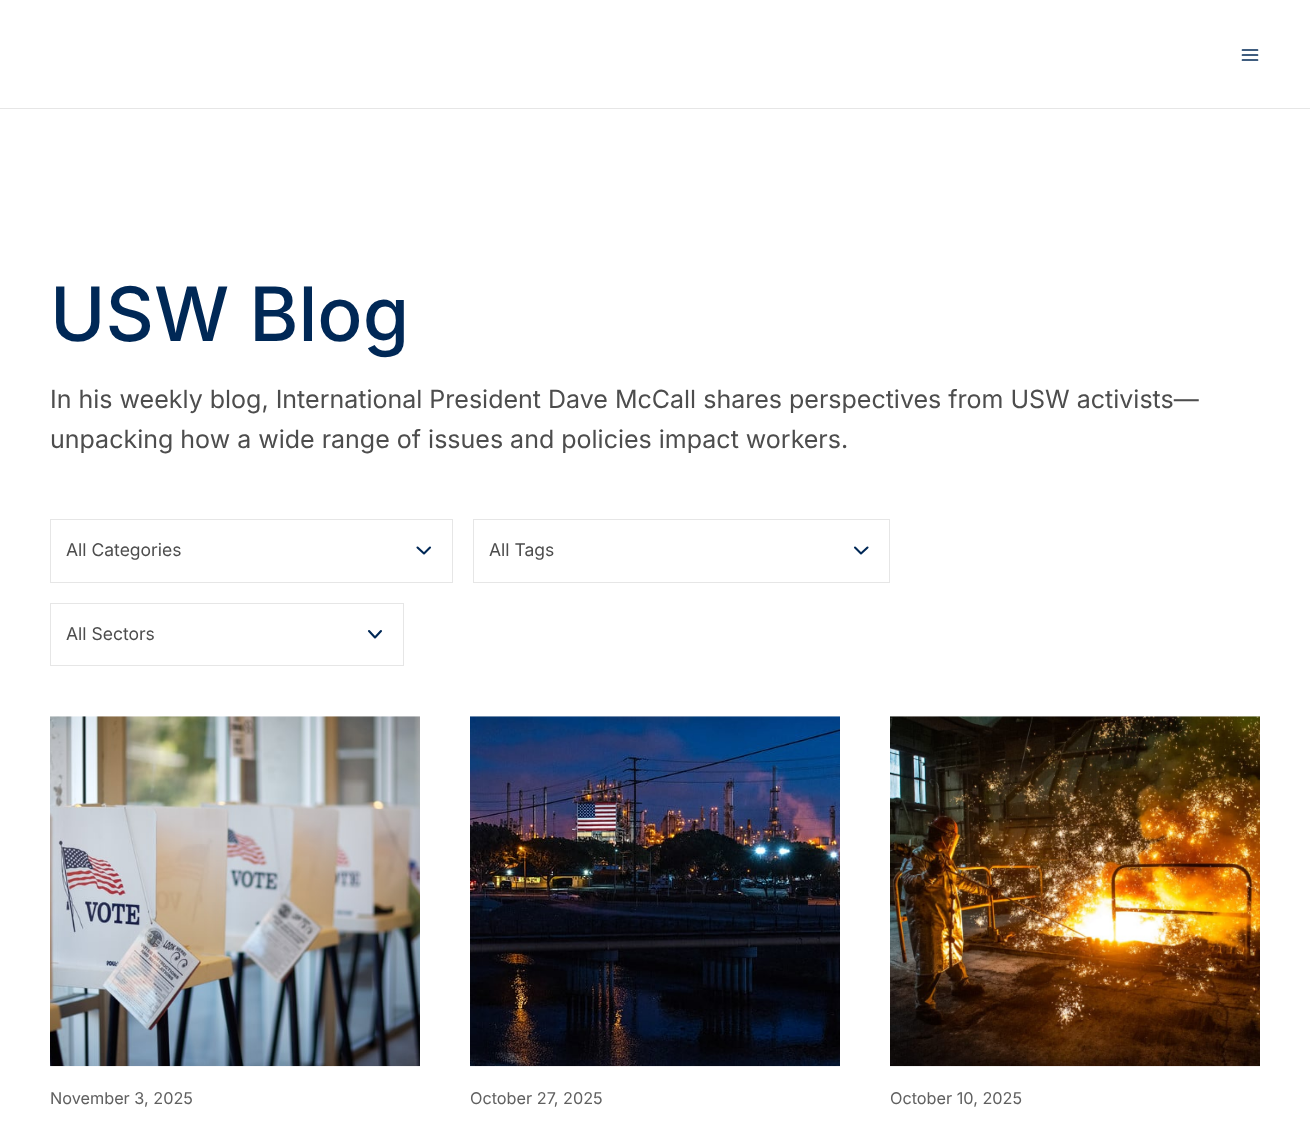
<!DOCTYPE html>
<meta charset="utf-8">
<style>body { margin: 0 } canvas { display: block }</style>
<canvas id="canvas" width="1310" height="1134"></canvas>
<script type="module">
  const canvas = document.getElementById("canvas");
  const ctx = canvas.getContext("2d");
  ctx.miterLimit = 4;
  ctx.fontKerning = "normal";
  async function loadImage(src) {
    const img = new Image();
    img.src = src;
    await img.decode();
    return img;
  }

  ctx.fillStyle = "#ffffff";
  ctx.fillRect(0, 0, 1310, 1134);
  ctx.fillStyle = "#e6e6e6";
  ctx.fillRect(0, 108, 1310, 1);
  ctx.beginPath();
  ctx.moveTo(1242.5, 55);
  ctx.lineTo(1257.5, 55);
  ctx.moveTo(1242.5, 50);
  ctx.lineTo(1257.5, 50);
  ctx.moveTo(1242.5, 60);
  ctx.lineTo(1257.5, 60);
  ctx.strokeStyle = "#002856";
  ctx.lineWidth = 1.7;
  ctx.lineCap = "round";
  ctx.lineJoin = "round";
  ctx.stroke();
  ctx.font = "500 75px Inter";
  ctx.fillStyle = "#002856";
  ctx.fillText("USW Blog", 50, 341);
  ctx.font = "25px Inter";
  ctx.fillStyle = "#4d4d4d";
  ctx.fillText("In his weekly blog, International President Dave McCall shares perspectives from USW activists—", 50, 408);
  ctx.fillText("unpacking how a wide range of issues and policies impact workers.", 50, 448);
  ctx.beginPath();
  ctx.moveTo(417.5, 547.5);
  ctx.lineTo(424, 553.5);
  ctx.lineTo(430, 547.5);
  ctx.lineWidth = 2.1;
  ctx.stroke();
  ctx.strokeStyle = "#e6e6e6";
  ctx.lineWidth = 1;
  ctx.lineJoin = "miter";
  ctx.strokeRect(50.5, 519.5, 402, 63);
  ctx.font = "17.5px Inter";
  ctx.fillText("All Categories", 66, 556);
  ctx.beginPath();
  ctx.moveTo(855, 547.5);
  ctx.lineTo(861, 553.5);
  ctx.lineTo(867.5, 547.5);
  ctx.strokeStyle = "#002856";
  ctx.lineWidth = 2.1;
  ctx.lineJoin = "round";
  ctx.stroke();
  ctx.strokeStyle = "#e6e6e6";
  ctx.lineWidth = 1;
  ctx.lineJoin = "miter";
  ctx.strokeRect(473.5, 519.5, 416, 63);
  ctx.fillText("All Tags", 489, 556);
  ctx.beginPath();
  ctx.moveTo(369, 631);
  ctx.lineTo(375, 637.5);
  ctx.lineTo(381, 631);
  ctx.strokeStyle = "#002856";
  ctx.lineWidth = 2.1;
  ctx.lineJoin = "round";
  ctx.stroke();
  ctx.strokeStyle = "#e6e6e6";
  ctx.lineWidth = 1;
  ctx.lineJoin = "miter";
  ctx.strokeRect(50.5, 603.5, 353, 62);
  ctx.fillText("All Sectors", 66, 640);
  ctx.drawImage(await loadImage("img1.png"), 50, 716, 370, 351);
  ctx.font = "16.25px Inter";
  ctx.fillStyle = "#606060";
  ctx.fillText("November 3, 2025", 50, 1104);
  ctx.drawImage(await loadImage("img2.png"), 470, 716, 370, 351);
  ctx.fillText("October 27, 2025", 470, 1104);
  ctx.drawImage(await loadImage("img3.png"), 890, 716, 370, 351);
  ctx.fillText("October 10, 2025", 890, 1104);
</script>
